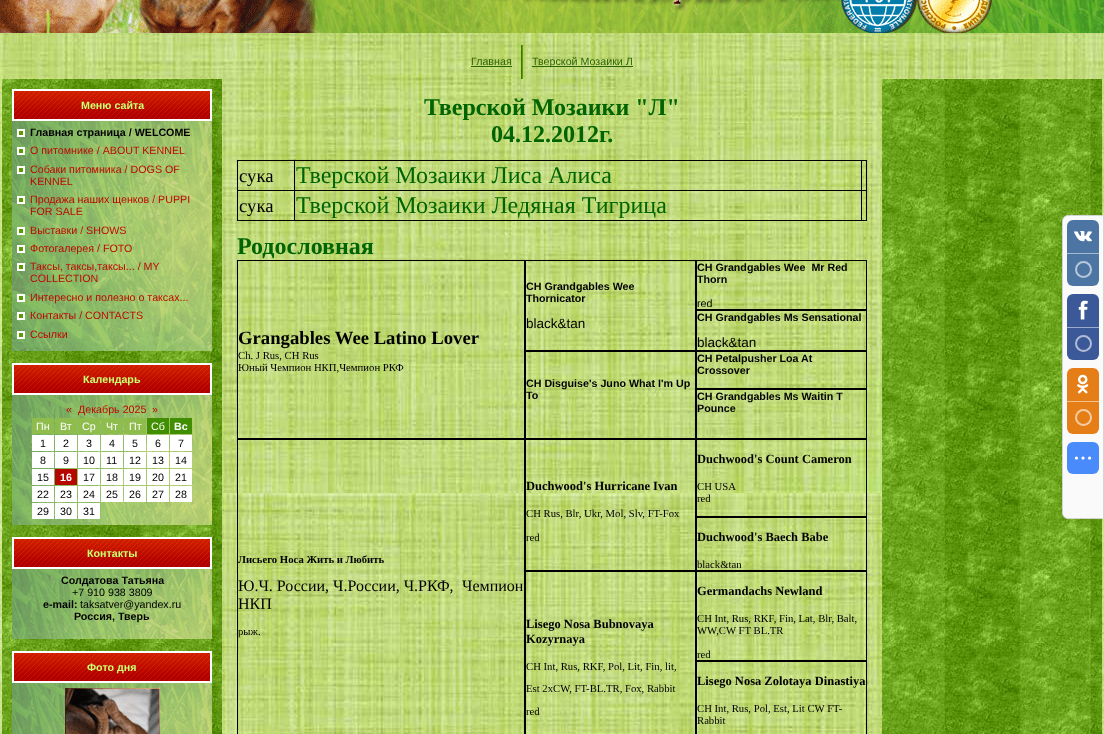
<!DOCTYPE html>
<meta charset="utf-8">
<style>body { margin: 0 } canvas { display: block }</style>
<canvas id="canvas" width="1104" height="734"></canvas>
<script type="module">
  const canvas = document.getElementById("canvas");
  const ctx = canvas.getContext("2d");
  ctx.miterLimit = 4;
  ctx.fontKerning = "normal";
  async function loadImage(src) {
    const img = new Image();
    img.src = src;
    await img.decode();
    return img;
  }

  ctx.fillStyle = "#ffffff";
  ctx.fillRect(0, 0, 1104, 734);
  ctx.drawImage(await loadImage("img1.png"), 0, 33, 1104, 701);
  ctx.drawImage(await loadImage("img2.png"), 0, 0, 1104, 33);
  ctx.font = "10.7px Liberation Sans";
  ctx.fillStyle = "#2e6400";
  ctx.fillText("Главная", 471, 65);
  ctx.fillRect(471, 66, 41, 1);
  ctx.drawImage(await loadImage("img3.png"), 521, 45, 2, 34);
  ctx.fillRect(532, 66, 101, 1);
  ctx.fillText("Тверской Мозаики Л", 532, 65);
  ctx.drawImage(await loadImage("img4.png"), 2, 79, 220, 655);
  ctx.drawImage(await loadImage("img5.png"), 12, 89, 200, 32);
  ctx.font = "bold 10.7px Liberation Sans";
  ctx.fillStyle = "#caff70";
  ctx.fillText("Меню сайта", 81, 109);
  ctx.drawImage(await loadImage("img6.png"), 12, 121, 200, 230);
  ctx.drawImage(await loadImage("img7.png"), 17, 129, 8, 8);
  ctx.fillStyle = "#000000";
  ctx.fillText("Главная страница / WELCOME", 30, 136);
  ctx.drawImage(await loadImage("img7.png"), 17, 147, 8, 8);
  ctx.font = "10.7px Liberation Sans";
  ctx.fillStyle = "#bd0a00";
  ctx.fillText("О питомнике / ABOUT KENNEL", 30, 154);
  ctx.drawImage(await loadImage("img7.png"), 17, 166, 8, 8);
  ctx.fillText("Собаки питомника / DOGS OF", 30, 173);
  ctx.fillText("KENNEL", 30, 185);
  ctx.drawImage(await loadImage("img7.png"), 17, 196, 8, 8);
  ctx.fillText("Продажа наших щенков / PUPPI", 30, 203);
  ctx.fillText("FOR SALE", 30, 215);
  ctx.drawImage(await loadImage("img7.png"), 17, 227, 8, 8);
  ctx.fillText("Выставки / SHOWS", 30, 234);
  ctx.drawImage(await loadImage("img7.png"), 17, 245, 8, 8);
  ctx.fillText("Фотогалерея / FOTO", 30, 252);
  ctx.drawImage(await loadImage("img7.png"), 17, 263, 8, 8);
  ctx.fillText("Таксы, таксы,таксы... / MY", 30, 270);
  ctx.fillText("COLLECTION", 30, 282);
  ctx.drawImage(await loadImage("img7.png"), 17, 294, 8, 8);
  ctx.fillText("Интересно и полезно о таксах...", 30, 301);
  ctx.drawImage(await loadImage("img7.png"), 17, 312, 8, 8);
  ctx.fillText("Контакты / CONTACTS", 30, 319);
  ctx.drawImage(await loadImage("img7.png"), 17, 331, 8, 8);
  ctx.fillText("Ссылки", 30, 338);
  ctx.drawImage(await loadImage("img5.png"), 12, 363, 200, 32);
  ctx.font = "bold 10.7px Liberation Sans";
  ctx.fillStyle = "#caff70";
  ctx.fillText("Календарь", 83, 383);
  ctx.drawImage(await loadImage("img8.png"), 12, 395, 200, 130);
  ctx.font = "10.7px Liberation Sans";
  ctx.fillStyle = "#bd0a00";
  ctx.fillText("«", 66, 413);
  ctx.fillText("Декабрь 2025", 78, 413);
  ctx.fillText("»", 152, 413);
  ctx.fillStyle = "#8ebc4d";
  ctx.fillRect(32, 418, 22, 16);
  ctx.fillStyle = "#ffffff";
  ctx.fillText("Пн", 36, 430);
  ctx.fillStyle = "#8ebc4d";
  ctx.fillRect(55, 418, 22, 16);
  ctx.fillStyle = "#ffffff";
  ctx.fillText("Вт", 60, 430);
  ctx.fillStyle = "#8ebc4d";
  ctx.fillRect(78, 418, 22, 16);
  ctx.fillStyle = "#ffffff";
  ctx.fillText("Ср", 82, 430);
  ctx.fillStyle = "#8ebc4d";
  ctx.fillRect(101, 418, 22, 16);
  ctx.fillStyle = "#ffffff";
  ctx.fillText("Чт", 106, 430);
  ctx.fillStyle = "#8ebc4d";
  ctx.fillRect(124, 418, 22, 16);
  ctx.fillStyle = "#ffffff";
  ctx.fillText("Пт", 129, 430);
  ctx.fillStyle = "#418e00";
  ctx.fillRect(147, 418, 22, 16);
  ctx.fillStyle = "#ffffff";
  ctx.fillText("Сб", 151, 430);
  ctx.fillStyle = "#418e00";
  ctx.fillRect(170, 418, 22, 16);
  ctx.font = "bold 10.7px Liberation Sans";
  ctx.fillStyle = "#ffffff";
  ctx.fillText("Вс", 174, 430);
  ctx.fillRect(32, 435, 22, 16);
  ctx.font = "10.7px Liberation Sans";
  ctx.fillStyle = "#000000";
  ctx.fillText("1", 40, 447);
  ctx.fillStyle = "#ffffff";
  ctx.fillRect(55, 435, 22, 16);
  ctx.fillStyle = "#000000";
  ctx.fillText("2", 63, 447);
  ctx.fillStyle = "#ffffff";
  ctx.fillRect(78, 435, 22, 16);
  ctx.fillStyle = "#000000";
  ctx.fillText("3", 86, 447);
  ctx.fillStyle = "#ffffff";
  ctx.fillRect(101, 435, 22, 16);
  ctx.fillStyle = "#000000";
  ctx.fillText("4", 109, 447);
  ctx.fillStyle = "#ffffff";
  ctx.fillRect(124, 435, 22, 16);
  ctx.fillStyle = "#000000";
  ctx.fillText("5", 132, 447);
  ctx.fillStyle = "#ffffff";
  ctx.fillRect(147, 435, 22, 16);
  ctx.fillStyle = "#000000";
  ctx.fillText("6", 155, 447);
  ctx.fillStyle = "#ffffff";
  ctx.fillRect(170, 435, 22, 16);
  ctx.fillStyle = "#000000";
  ctx.fillText("7", 178, 447);
  ctx.fillStyle = "#ffffff";
  ctx.fillRect(32, 452, 22, 16);
  ctx.fillStyle = "#000000";
  ctx.fillText("8", 40, 464);
  ctx.fillStyle = "#ffffff";
  ctx.fillRect(55, 452, 22, 16);
  ctx.fillStyle = "#000000";
  ctx.fillText("9", 63, 464);
  ctx.fillStyle = "#ffffff";
  ctx.fillRect(78, 452, 22, 16);
  ctx.fillStyle = "#000000";
  ctx.fillText("10", 83, 464);
  ctx.fillStyle = "#ffffff";
  ctx.fillRect(101, 452, 22, 16);
  ctx.fillStyle = "#000000";
  ctx.fillText("11", 106, 464);
  ctx.fillStyle = "#ffffff";
  ctx.fillRect(124, 452, 22, 16);
  ctx.fillStyle = "#000000";
  ctx.fillText("12", 129, 464);
  ctx.fillStyle = "#ffffff";
  ctx.fillRect(147, 452, 22, 16);
  ctx.fillStyle = "#000000";
  ctx.fillText("13", 152, 464);
  ctx.fillStyle = "#ffffff";
  ctx.fillRect(170, 452, 22, 16);
  ctx.fillStyle = "#000000";
  ctx.fillText("14", 175, 464);
  ctx.fillStyle = "#ffffff";
  ctx.fillRect(32, 469, 22, 16);
  ctx.fillStyle = "#000000";
  ctx.fillText("15", 37, 481);
  ctx.fillStyle = "#b60600";
  ctx.fillRect(55, 469, 22, 16);
  ctx.font = "bold 10.7px Liberation Sans";
  ctx.fillStyle = "#ffffff";
  ctx.fillText("16", 60, 481);
  ctx.fillRect(78, 469, 22, 16);
  ctx.font = "10.7px Liberation Sans";
  ctx.fillStyle = "#000000";
  ctx.fillText("17", 83, 481);
  ctx.fillStyle = "#ffffff";
  ctx.fillRect(101, 469, 22, 16);
  ctx.fillStyle = "#000000";
  ctx.fillText("18", 106, 481);
  ctx.fillStyle = "#ffffff";
  ctx.fillRect(124, 469, 22, 16);
  ctx.fillStyle = "#000000";
  ctx.fillText("19", 129, 481);
  ctx.fillStyle = "#ffffff";
  ctx.fillRect(147, 469, 22, 16);
  ctx.fillStyle = "#000000";
  ctx.fillText("20", 152, 481);
  ctx.fillStyle = "#ffffff";
  ctx.fillRect(170, 469, 22, 16);
  ctx.fillStyle = "#000000";
  ctx.fillText("21", 175, 481);
  ctx.fillStyle = "#ffffff";
  ctx.fillRect(32, 486, 22, 16);
  ctx.fillStyle = "#000000";
  ctx.fillText("22", 37, 498);
  ctx.fillStyle = "#ffffff";
  ctx.fillRect(55, 486, 22, 16);
  ctx.fillStyle = "#000000";
  ctx.fillText("23", 60, 498);
  ctx.fillStyle = "#ffffff";
  ctx.fillRect(78, 486, 22, 16);
  ctx.fillStyle = "#000000";
  ctx.fillText("24", 83, 498);
  ctx.fillStyle = "#ffffff";
  ctx.fillRect(101, 486, 22, 16);
  ctx.fillStyle = "#000000";
  ctx.fillText("25", 106, 498);
  ctx.fillStyle = "#ffffff";
  ctx.fillRect(124, 486, 22, 16);
  ctx.fillStyle = "#000000";
  ctx.fillText("26", 129, 498);
  ctx.fillStyle = "#ffffff";
  ctx.fillRect(147, 486, 22, 16);
  ctx.fillStyle = "#000000";
  ctx.fillText("27", 152, 498);
  ctx.fillStyle = "#ffffff";
  ctx.fillRect(170, 486, 22, 16);
  ctx.fillStyle = "#000000";
  ctx.fillText("28", 175, 498);
  ctx.fillStyle = "#ffffff";
  ctx.fillRect(32, 503, 22, 16);
  ctx.fillStyle = "#000000";
  ctx.fillText("29", 37, 515);
  ctx.fillStyle = "#ffffff";
  ctx.fillRect(55, 503, 22, 16);
  ctx.fillStyle = "#000000";
  ctx.fillText("30", 60, 515);
  ctx.fillStyle = "#ffffff";
  ctx.fillRect(78, 503, 22, 16);
  ctx.fillStyle = "#000000";
  ctx.fillText("31", 83, 515);
  ctx.drawImage(await loadImage("img5.png"), 12, 537, 200, 32);
  ctx.font = "bold 10.7px Liberation Sans";
  ctx.fillStyle = "#caff70";
  ctx.fillText("Контакты", 87, 557);
  ctx.drawImage(await loadImage("img9.png"), 12, 569, 200, 70);
  ctx.fillStyle = "#000000";
  ctx.fillText("Солдатова Татьяна", 61, 584);
  ctx.font = "10.7px Liberation Sans";
  ctx.fillText("+7 910 938 3809", 72, 596);
  ctx.font = "bold 10.7px Liberation Sans";
  ctx.fillText("e-mail:", 43, 608);
  ctx.font = "10.7px Liberation Sans";
  ctx.fillText("taksatver@yandex.ru", 80, 608);
  ctx.font = "bold 10.7px Liberation Sans";
  ctx.fillText("Россия, Тверь", 74, 620);
  ctx.drawImage(await loadImage("img5.png"), 12, 651, 200, 32);
  ctx.fillStyle = "#caff70";
  ctx.fillText("Фото дня", 87, 671);
  ctx.drawImage(await loadImage("img10.png"), 12, 683, 200, 51);
  ctx.drawImage(await loadImage("img11.png"), 65, 688, 95, 46);
  ctx.font = "bold 24px Liberation Serif";
  ctx.fillStyle = "#006400";
  ctx.fillText("Тверской Мозаики \"Л\"", 424, 115);
  ctx.fillText("04.12.2012г.", 491, 142);
  ctx.fillStyle = "#000000";
  ctx.fillRect(237, 160, 630, 1);
  ctx.fillRect(866, 160, 1, 61);
  ctx.fillRect(237, 220, 630, 1);
  ctx.fillRect(237, 160, 1, 61);
  ctx.font = "18.7px Liberation Serif";
  ctx.fillText("сука", 239, 182);
  ctx.fillRect(861, 190, 6, 1);
  ctx.fillRect(861, 190, 1, 31);
  ctx.fillRect(294, 190, 568, 1);
  ctx.fillRect(294, 190, 1, 31);
  ctx.fillRect(237, 190, 58, 1);
  ctx.fillRect(294, 160, 1, 31);
  ctx.font = "24px Liberation Serif";
  ctx.fillStyle = "#006400";
  ctx.fillText("Тверской Мозаики Лиса Алиса", 296, 183);
  ctx.fillStyle = "#000000";
  ctx.fillRect(861, 160, 1, 31);
  ctx.font = "18.7px Liberation Serif";
  ctx.fillText("сука", 239, 212);
  ctx.font = "24px Liberation Serif";
  ctx.fillStyle = "#006400";
  ctx.fillText("Тверской Мозаики Ледяная Тигрица", 296, 213);
  ctx.font = "bold 24px Liberation Serif";
  ctx.fillText("Родословная", 237, 254);
  ctx.strokeStyle = "#000000";
  ctx.strokeRect(525.5, 260.5, 170, 90);
  ctx.font = "bold 10.7px Liberation Sans";
  ctx.fillStyle = "#000000";
  ctx.fillText("CH Grandgables Wee", 526, 290);
  ctx.fillText("Thornicator", 526, 302);
  ctx.font = "13.5px Liberation Sans";
  ctx.fillText("black&tan", 526, 328);
  ctx.strokeRect(696.5, 260.5, 170, 49);
  ctx.font = "bold 10.7px Liberation Sans";
  ctx.fillText("CH Grandgables Wee  Mr Red", 697, 271);
  ctx.fillText("Thorn", 697, 283);
  ctx.font = "10.7px Liberation Sans";
  ctx.fillText("red", 697, 307);
  ctx.strokeRect(237.5, 260.5, 287, 178);
  ctx.font = "bold 18.7px Liberation Serif";
  ctx.fillText("Grangables Wee Latino Lover", 238, 344);
  ctx.font = "10.7px Liberation Serif";
  ctx.fillText("Ch. J Rus, CH Rus", 238, 359);
  ctx.fillText("Юный Чемпион НКП,Чемпион РКФ", 238, 371);
  ctx.strokeRect(696.5, 310.5, 170, 40);
  ctx.font = "bold 10.7px Liberation Sans";
  ctx.fillText("CH Grandgables Ms Sensational", 697, 321);
  ctx.font = "13.5px Liberation Sans";
  ctx.fillText("black&tan", 697, 347);
  ctx.strokeRect(696.5, 351.5, 170, 37);
  ctx.font = "bold 10.7px Liberation Sans";
  ctx.fillText("CH Petalpusher Loa At", 697, 362);
  ctx.fillText("Crossover", 697, 374);
  ctx.strokeRect(525.5, 351.5, 170, 87);
  ctx.fillText("CH Disguise's Juno What I'm Up", 526, 387);
  ctx.fillText("To", 526, 399);
  ctx.strokeRect(696.5, 389.5, 170, 49);
  ctx.fillText("CH Grandgables Ms Waitin T", 697, 400);
  ctx.fillText("Pounce", 697, 412);
  ctx.strokeRect(525.5, 439.5, 170, 131);
  ctx.font = "bold 12.5px Liberation Serif";
  ctx.fillText("Duchwood's Hurricane Ivan", 526, 490);
  ctx.font = "10.7px Liberation Serif";
  ctx.fillText("CH Rus, Blr, Ukr, Mol, Slv, FT-Fox", 526, 517);
  ctx.fillText("red", 526, 541);
  ctx.strokeRect(696.5, 439.5, 170, 77);
  ctx.font = "bold 12.5px Liberation Serif";
  ctx.fillText("Duchwood's Count Cameron", 697, 463);
  ctx.font = "10.7px Liberation Serif";
  ctx.fillText("CH USA", 697, 490);
  ctx.fillText("red", 697, 502);
  ctx.strokeRect(237.5, 439.5, 287, 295);
  ctx.font = "bold 10.7px Liberation Serif";
  ctx.fillText("Лисьего Носа Жить и Любить", 238, 563);
  ctx.font = "16px Liberation Serif";
  ctx.fillText("Ю.Ч. России, Ч.России, Ч.РКФ,", 238, 591);
  ctx.fillText("Чемпион", 462, 591);
  ctx.fillText("НКП", 238, 609);
  ctx.font = "10.7px Liberation Serif";
  ctx.fillText("рыж.", 238, 635);
  ctx.strokeRect(696.5, 517.5, 170, 53);
  ctx.font = "bold 12.5px Liberation Serif";
  ctx.fillText("Duchwood's Baech Babe", 697, 541);
  ctx.font = "10.7px Liberation Serif";
  ctx.fillText("black&tan", 697, 568);
  ctx.strokeRect(525.5, 571.5, 170, 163);
  ctx.font = "bold 12.5px Liberation Serif";
  ctx.fillText("Lisego Nosa Bubnovaya", 526, 628);
  ctx.fillText("Kozyrnaya", 526, 643);
  ctx.font = "10.7px Liberation Serif";
  ctx.fillText("CH Int, Rus, RKF, Pol, Lit, Fin, lit,", 526, 670);
  ctx.fillText("Est 2xCW, FT-BL.TR, Fox, Rabbit", 526, 692);
  ctx.fillText("red", 526, 715);
  ctx.strokeRect(696.5, 571.5, 170, 89);
  ctx.font = "bold 12.5px Liberation Serif";
  ctx.fillText("Germandachs Newland", 697, 595);
  ctx.font = "10.7px Liberation Serif";
  ctx.fillText("CH Int, Rus, RKF, Fin, Lat, Blr, Balt,", 697, 622);
  ctx.fillText("WW,CW FT BL.TR", 697, 634);
  ctx.fillText("red", 697, 658);
  ctx.strokeRect(696.5, 661.5, 170, 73);
  ctx.font = "bold 12.5px Liberation Serif";
  ctx.fillText("Lisego Nosa Zolotaya Dinastiya", 697, 685);
  ctx.font = "10.7px Liberation Serif";
  ctx.fillText("CH Int, Rus, Pol, Est, Lit CW FT-", 697, 712);
  ctx.fillText("Rabbit", 697, 724);
  ctx.drawImage(await loadImage("img4.png"), 882, 79, 220, 655);
  ctx.fillStyle = "#fafafa";
  ctx.beginPath();
  ctx.roundRect(1062.5, 215.5, 41, 303, [5.5, 0, 0, 5.5]);
  ctx.fill();
  ctx.strokeStyle = "#d4d4d4";
  ctx.stroke();
  ctx.fillStyle = "#4d75a3";
  ctx.beginPath();
  ctx.roundRect(1067, 220, 32, 66, 6);
  ctx.fill();
  ctx.drawImage(await loadImage("img12.png"), 1074, 231, 18, 11);
  ctx.fillStyle = "#a6bad1";
  ctx.fillRect(1067, 253, 32, 1);
  ctx.beginPath();
  ctx.arc(1083.5, 269.5, 7.5, 0, Math.PI * 2);
  ctx.strokeStyle = "#b8c8da";
  ctx.lineWidth = 2;
  ctx.stroke();
  ctx.fillStyle = "#3b5998";
  ctx.beginPath();
  ctx.roundRect(1067, 294, 32, 66, 6);
  ctx.fill();
  ctx.drawImage(await loadImage("img13.png"), 1078, 300, 10, 20);
  ctx.fillStyle = "#9daccc";
  ctx.fillRect(1067, 327, 32, 1);
  ctx.beginPath();
  ctx.arc(1083.5, 343.5, 7.5, 0, Math.PI * 2);
  ctx.strokeStyle = "#b1bdd6";
  ctx.stroke();
  ctx.fillStyle = "#e67e17";
  ctx.beginPath();
  ctx.roundRect(1067, 368, 32, 66, 6);
  ctx.fill();
  ctx.drawImage(await loadImage("img14.png"), 1077, 374, 12, 20);
  ctx.fillStyle = "#f3bf8b";
  ctx.fillRect(1067, 401, 32, 1);
  ctx.beginPath();
  ctx.arc(1083.5, 417.5, 7.5, 0, Math.PI * 2);
  ctx.strokeStyle = "#f5cba2";
  ctx.stroke();
  ctx.fillStyle = "#498bfa";
  ctx.beginPath();
  ctx.roundRect(1067, 442, 32, 32, 6);
  ctx.fill();
  ctx.drawImage(await loadImage("img15.png"), 1074, 456, 18, 4);
</script>
